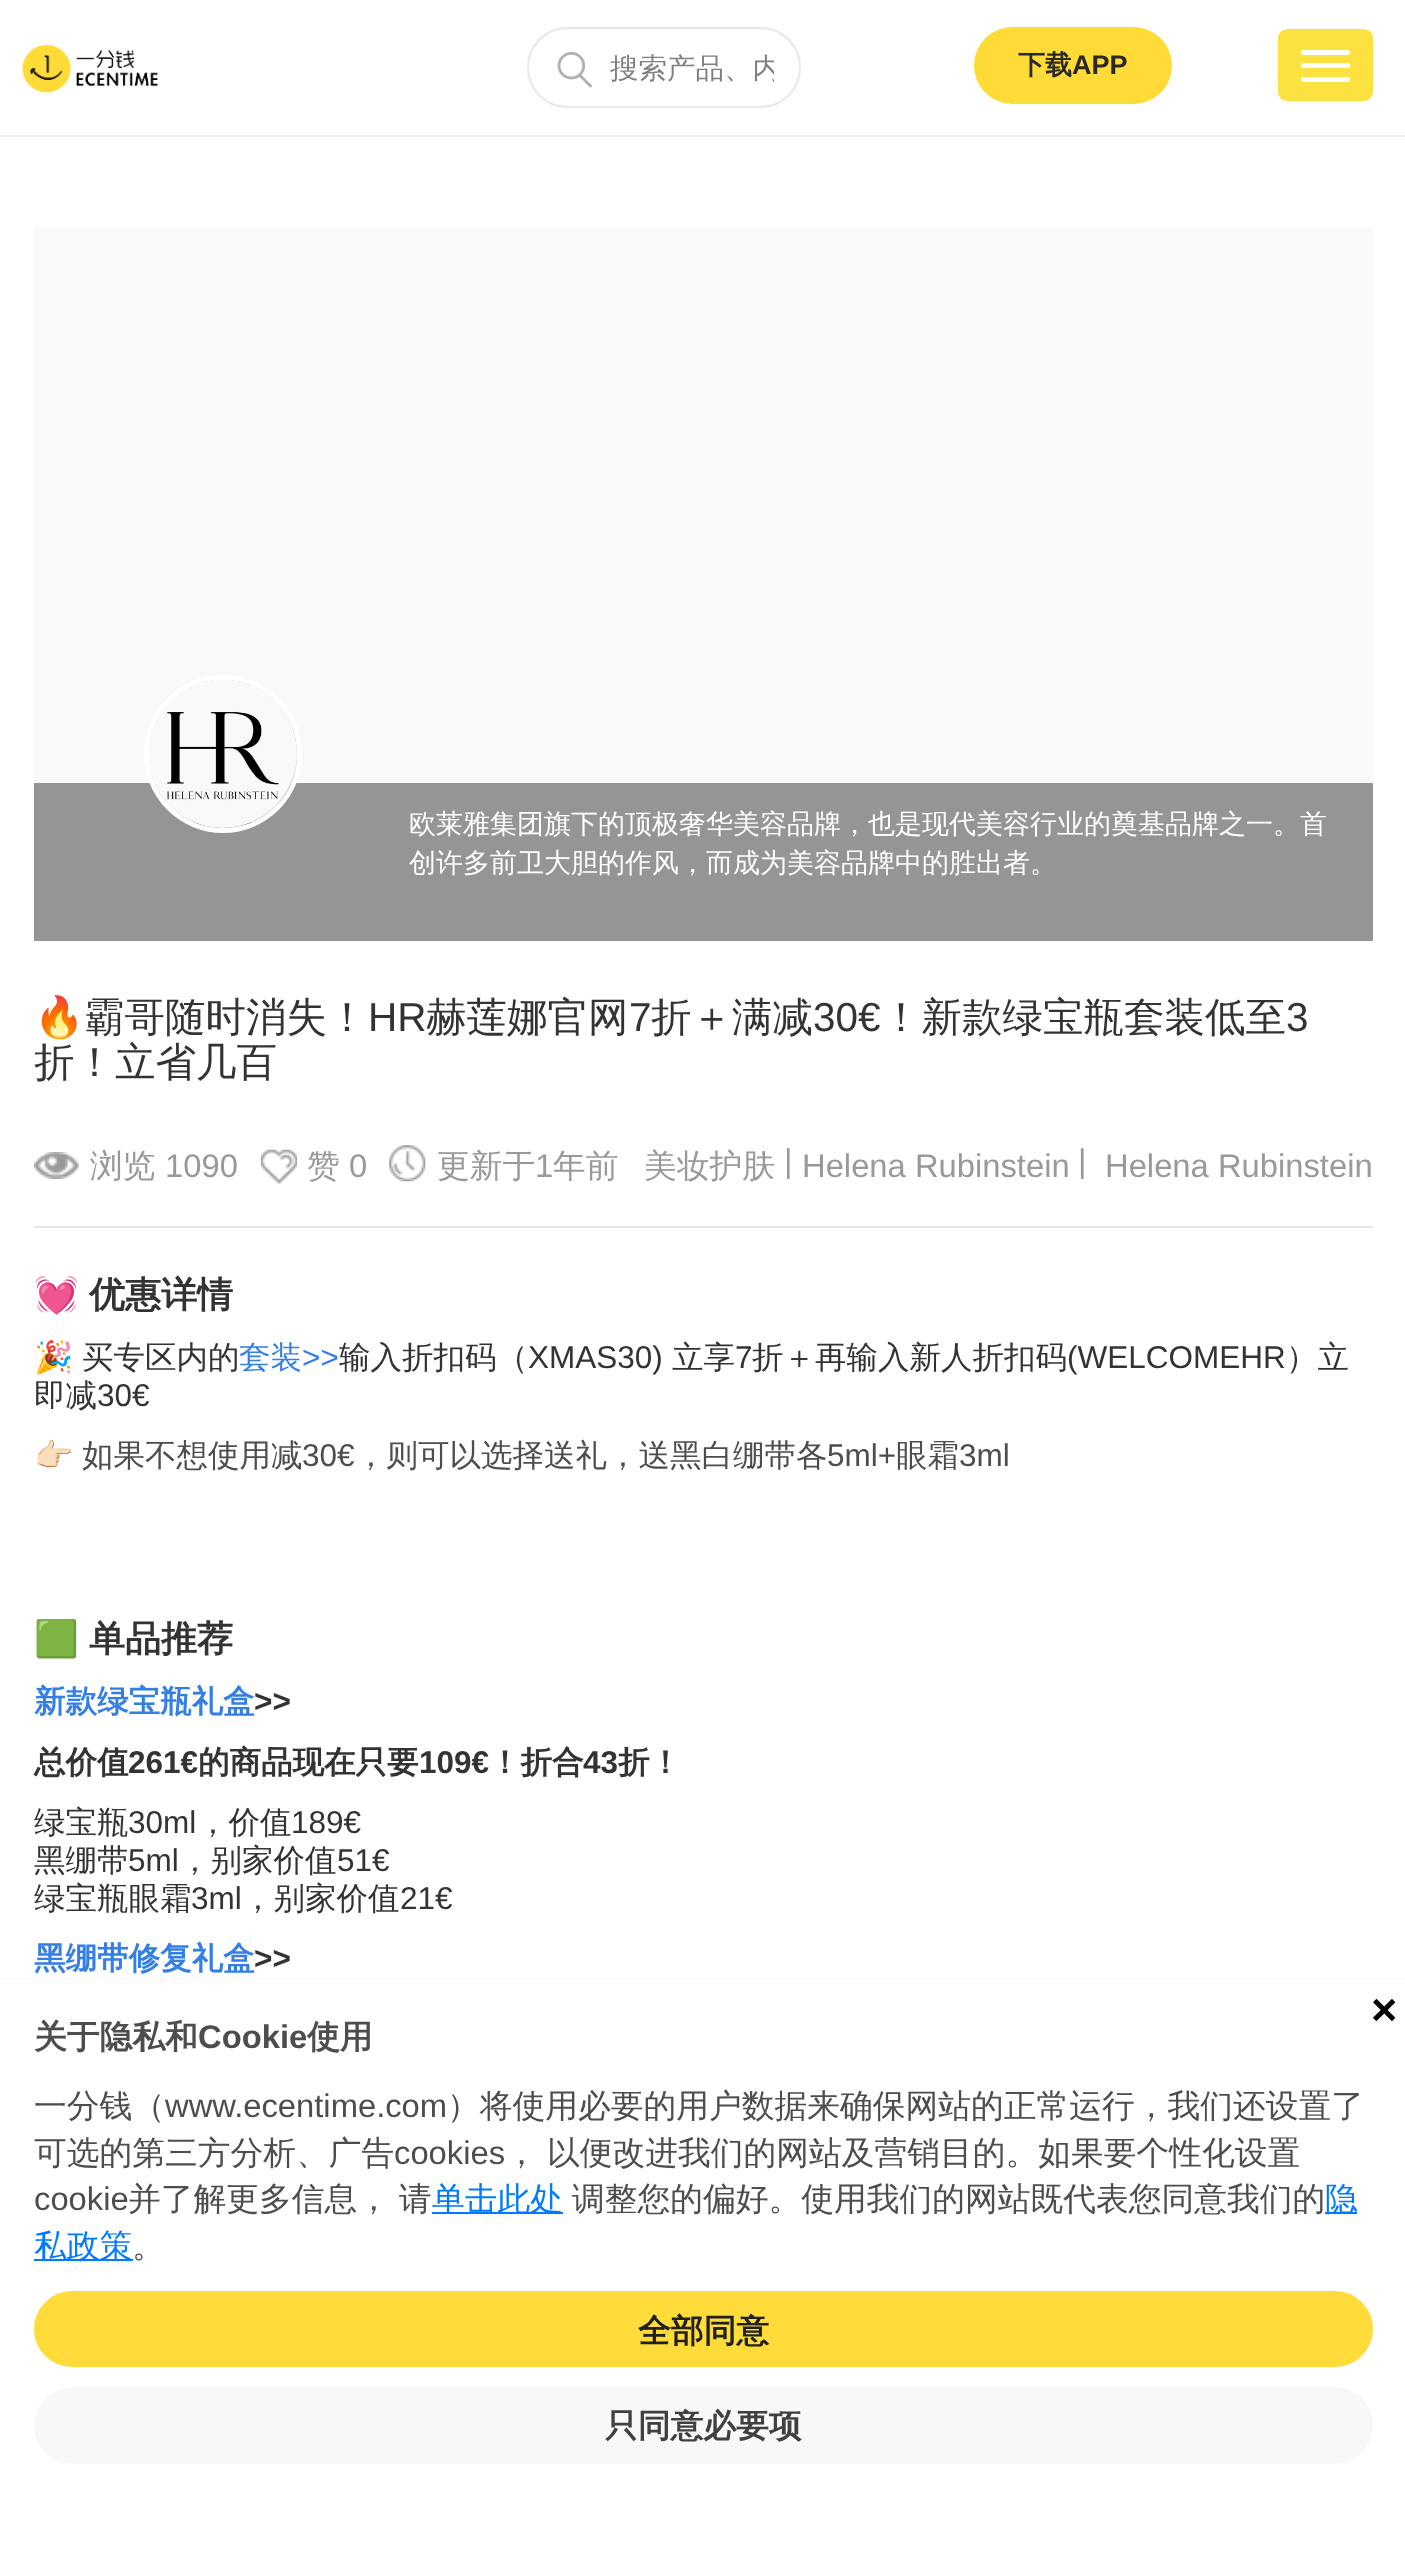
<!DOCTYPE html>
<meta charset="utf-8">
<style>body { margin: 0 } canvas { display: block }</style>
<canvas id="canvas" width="1405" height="2550"></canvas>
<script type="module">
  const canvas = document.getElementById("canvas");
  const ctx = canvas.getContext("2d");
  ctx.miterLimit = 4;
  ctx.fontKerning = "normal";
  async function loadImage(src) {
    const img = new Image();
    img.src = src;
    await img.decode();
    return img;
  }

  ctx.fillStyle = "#ffffff";
  ctx.fillRect(0, 0, 1405, 2550);
  ctx.fillStyle = "#f2f2f2";
  ctx.fillRect(0, 135, 1405, 2);
  ctx.drawImage(await loadImage("img1.png"), 22, 45, 136, 48);
  ctx.beginPath();
  ctx.roundRect(528, 28, 272, 79, 39.5);
  ctx.strokeStyle = "#e8e8e8";
  ctx.lineWidth = 2;
  ctx.stroke();
  ctx.drawImage(await loadImage("img2.png"), 557, 51, 35, 37);
  ctx.save();
  ctx.beginPath();
  ctx.rect(610, 52, 164, 36);
  ctx.clip();
  ctx.font = "500 28.5px WenQuanYi Zen Hei";
  ctx.fillStyle = "#808080";
  ctx.fillText("搜索产品、内", 610, 78);
  ctx.restore();
  ctx.fillStyle = "#ffdb38";
  ctx.beginPath();
  ctx.roundRect(974, 27, 198, 77, 38.5);
  ctx.fill();
  ctx.font = "bold 27px WenQuanYi Zen Hei";
  ctx.fillStyle = "#2a2928";
  ctx.fillText("下载", 1018, 74);
  ctx.font = "bold 27px Liberation Sans";
  ctx.fillText("APP", 1072, 74);
  ctx.fillStyle = "#fbe241";
  ctx.beginPath();
  ctx.roundRect(1278, 29, 95, 72, 9);
  ctx.fill();
  ctx.fillStyle = "#ffffff";
  ctx.beginPath();
  ctx.roundRect(1301, 50, 49, 5, 2.5);
  ctx.fill();
  ctx.beginPath();
  ctx.roundRect(1301, 63, 49, 5, 2.5);
  ctx.fill();
  ctx.beginPath();
  ctx.roundRect(1301, 77, 49, 5, 2.5);
  ctx.fill();
  ctx.fillStyle = "#f9f9f9";
  ctx.fillRect(34, 227, 1339, 556);
  ctx.fillStyle = "#959595";
  ctx.fillRect(34, 783, 1339, 158);
  ctx.fillStyle = "rgba(0, 0, 0, 0.3)";
  ctx.beginPath();
  ctx.arc(223, 754, 76.5, 0, Math.PI * 2);
  ctx.fill();
  ctx.strokeStyle = "#ffffff";
  ctx.lineWidth = 5;
  ctx.stroke();
  ctx.drawImage(await loadImage("img3.png"), 149, 680, 148, 148);
  ctx.font = "500 27px WenQuanYi Zen Hei";
  ctx.fillStyle = "#ffffff";
  ctx.fillText("欧莱雅集团旗下的顶极奢华美容品牌，也是现代美容行业的奠基品牌之一。首", 409, 833);
  ctx.fillText("创许多前卫大胆的作风，而成为美容品牌中的胜出者。", 409, 872);
  ctx.font = "40.5px Noto Color Emoji";
  ctx.fillStyle = "#333333";
  ctx.fillText("🔥", 34, 1031);
  ctx.font = "500 40.5px WenQuanYi Zen Hei";
  ctx.fillText("霸哥随时消失！", 84, 1031);
  ctx.font = "40.5px Liberation Sans";
  ctx.fillText("HR", 368, 1031);
  ctx.font = "500 40.5px WenQuanYi Zen Hei";
  ctx.fillText("赫莲娜官网", 426, 1031);
  ctx.font = "40.5px Liberation Sans";
  ctx.fillText("7", 629, 1031);
  ctx.font = "500 40.5px WenQuanYi Zen Hei";
  ctx.fillText("折＋满减", 651, 1031);
  ctx.font = "40.5px Liberation Sans";
  ctx.fillText("30€", 813, 1031);
  ctx.font = "500 40.5px WenQuanYi Zen Hei";
  ctx.fillText("！新款绿宝瓶套装低至", 881, 1031);
  ctx.font = "40.5px Liberation Sans";
  ctx.fillText("3", 1286, 1031);
  ctx.font = "500 40.5px WenQuanYi Zen Hei";
  ctx.fillText("折！立省几百", 34, 1076);
  ctx.fillStyle = "#e6e6e6";
  ctx.fillRect(34, 1226, 1339, 2);
  ctx.drawImage(await loadImage("img4.png"), 33, 1152, 46, 27);
  ctx.font = "500 32.75px WenQuanYi Zen Hei";
  ctx.fillStyle = "#999999";
  ctx.fillText("浏览", 90, 1177);
  ctx.font = "32.75px Liberation Sans";
  ctx.fillText("1090", 165, 1177);
  ctx.drawImage(await loadImage("img5.png"), 261, 1149, 36, 35);
  ctx.font = "500 32.75px WenQuanYi Zen Hei";
  ctx.fillText("赞", 307, 1177);
  ctx.font = "32.75px Liberation Sans";
  ctx.fillText("0", 349, 1177);
  ctx.drawImage(await loadImage("img6.png"), 389, 1145, 37, 37);
  ctx.font = "500 32.75px WenQuanYi Zen Hei";
  ctx.fillText("更新于", 437, 1177);
  ctx.font = "32.75px Liberation Sans";
  ctx.fillText("1", 535, 1177);
  ctx.font = "500 32.75px WenQuanYi Zen Hei";
  ctx.fillText("年前", 553, 1177);
  ctx.fillText("美妆护肤", 644, 1177);
  ctx.font = "32.75px Liberation Sans";
  ctx.fillText("|", 784, 1172);
  ctx.fillText("Helena Rubinstein", 802, 1177);
  ctx.fillText("|", 1078, 1172);
  ctx.fillText("Helena Rubinstein", 1105, 1177);
  ctx.font = "bold 36px Noto Color Emoji";
  ctx.fillStyle = "#333333";
  ctx.fillText("💓", 34, 1307);
  ctx.font = "bold 36px WenQuanYi Zen Hei";
  ctx.fillText("优惠详情", 89, 1307);
  ctx.font = "31.5px Noto Color Emoji";
  ctx.fillText("🎉", 34, 1368);
  ctx.font = "500 31.5px WenQuanYi Zen Hei";
  ctx.fillText("买专区内的", 82, 1368);
  ctx.fillStyle = "#337fe5";
  ctx.fillText("套装", 239, 1368);
  ctx.font = "31.5px Liberation Sans";
  ctx.fillText(">>", 302, 1368);
  ctx.font = "500 31.5px WenQuanYi Zen Hei";
  ctx.fillStyle = "#333333";
  ctx.fillText("输入折扣码（", 339, 1368);
  ctx.font = "31.5px Liberation Sans";
  ctx.fillText("XMAS30)", 528, 1368);
  ctx.font = "500 31.5px WenQuanYi Zen Hei";
  ctx.fillText("立享", 672, 1368);
  ctx.font = "31.5px Liberation Sans";
  ctx.fillText("7", 735, 1368);
  ctx.font = "500 31.5px WenQuanYi Zen Hei";
  ctx.fillText("折＋再输入新人折扣码", 752, 1368);
  ctx.font = "31.5px Liberation Sans";
  ctx.fillText("(WELCOMEHR", 1067, 1368);
  ctx.font = "500 31.5px WenQuanYi Zen Hei";
  ctx.fillText("）立", 1286, 1368);
  ctx.fillText("即减", 34, 1406);
  ctx.font = "31.5px Liberation Sans";
  ctx.fillText("30€", 97, 1406);
  ctx.font = "31.5px Noto Color Emoji";
  ctx.fillStyle = "#4d4d4d";
  ctx.fillText("👉🏻", 34, 1466);
  ctx.font = "500 31.5px WenQuanYi Zen Hei";
  ctx.fillText("如果不想使用减", 82, 1466);
  ctx.font = "31.5px Liberation Sans";
  ctx.fillText("30€", 302, 1466);
  ctx.font = "500 31.5px WenQuanYi Zen Hei";
  ctx.fillText("，则可以选择送礼，送黑白绷带各", 355, 1466);
  ctx.font = "31.5px Liberation Sans";
  ctx.fillText("5ml+", 827, 1466);
  ctx.font = "500 31.5px WenQuanYi Zen Hei";
  ctx.fillText("眼霜", 896, 1466);
  ctx.font = "31.5px Liberation Sans";
  ctx.fillText("3ml", 959, 1466);
  ctx.font = "bold 36px Noto Color Emoji";
  ctx.fillStyle = "#333333";
  ctx.fillText("🟩", 34, 1651);
  ctx.font = "bold 36px WenQuanYi Zen Hei";
  ctx.fillText("单品推荐", 89, 1651);
  ctx.font = "bold 31.5px WenQuanYi Zen Hei";
  ctx.fillStyle = "#337fe5";
  ctx.fillText("新款绿宝瓶礼盒", 34, 1712);
  ctx.font = "bold 31.5px Liberation Sans";
  ctx.fillStyle = "#333333";
  ctx.fillText(">>", 254, 1712);
  ctx.font = "bold 31.5px WenQuanYi Zen Hei";
  ctx.fillText("总价值", 34, 1773);
  ctx.font = "bold 31.5px Liberation Sans";
  ctx.fillText("261€", 128, 1773);
  ctx.font = "bold 31.5px WenQuanYi Zen Hei";
  ctx.fillText("的商品现在只要", 198, 1773);
  ctx.font = "bold 31.5px Liberation Sans";
  ctx.fillText("109€", 419, 1773);
  ctx.font = "bold 31.5px WenQuanYi Zen Hei";
  ctx.fillText("！折合", 489, 1773);
  ctx.font = "bold 31.5px Liberation Sans";
  ctx.fillText("43", 583, 1773);
  ctx.font = "bold 31.5px WenQuanYi Zen Hei";
  ctx.fillText("折！", 618, 1773);
  ctx.font = "500 31.5px WenQuanYi Zen Hei";
  ctx.fillText("绿宝瓶", 34, 1833);
  ctx.font = "31.5px Liberation Sans";
  ctx.fillText("30ml", 128, 1833);
  ctx.font = "500 31.5px WenQuanYi Zen Hei";
  ctx.fillText("，价值", 197, 1833);
  ctx.font = "31.5px Liberation Sans";
  ctx.fillText("189€", 291, 1833);
  ctx.font = "500 31.5px WenQuanYi Zen Hei";
  ctx.fillText("黑绷带", 34, 1871);
  ctx.font = "31.5px Liberation Sans";
  ctx.fillText("5ml", 128, 1871);
  ctx.font = "500 31.5px WenQuanYi Zen Hei";
  ctx.fillText("，别家价值", 179, 1871);
  ctx.font = "31.5px Liberation Sans";
  ctx.fillText("51€", 337, 1871);
  ctx.font = "500 31.5px WenQuanYi Zen Hei";
  ctx.fillText("绿宝瓶眼霜", 34, 1909);
  ctx.font = "31.5px Liberation Sans";
  ctx.fillText("3ml", 191, 1909);
  ctx.font = "500 31.5px WenQuanYi Zen Hei";
  ctx.fillText("，别家价值", 242, 1909);
  ctx.font = "31.5px Liberation Sans";
  ctx.fillText("21€", 400, 1909);
  ctx.font = "bold 31.5px WenQuanYi Zen Hei";
  ctx.fillStyle = "#337fe5";
  ctx.fillText("黑绷带修复礼盒", 34, 1969);
  ctx.font = "bold 31.5px Liberation Sans";
  ctx.fillStyle = "#333333";
  ctx.fillText(">>", 254, 1969);
  ctx.fillStyle = "#fafafa";
  ctx.fillRect(0, 1978, 1405, 2);
  ctx.font = "bold 45px Liberation Sans";
  ctx.fillStyle = "#000000";
  ctx.fillText("×", 1371, 2025);
  ctx.font = "bold 32.75px WenQuanYi Zen Hei";
  ctx.fillStyle = "#4d4d4d";
  ctx.fillText("关于隐私和", 34, 2048);
  ctx.font = "bold 32.75px Liberation Sans";
  ctx.fillText("Cookie", 198, 2048);
  ctx.font = "bold 32.75px WenQuanYi Zen Hei";
  ctx.fillText("使用", 307, 2048);
  ctx.font = "500 32.75px WenQuanYi Zen Hei";
  ctx.fillText("一分钱（", 34, 2117);
  ctx.font = "32.75px Liberation Sans";
  ctx.fillText("www.ecentime.com", 165, 2117);
  ctx.font = "500 32.75px WenQuanYi Zen Hei";
  ctx.fillText("）将使用必要的用户数据来确保网站的正常运行，我们还设置了", 447, 2117);
  ctx.fillText("可选的第三方分析、广告", 34, 2164);
  ctx.font = "32.75px Liberation Sans";
  ctx.fillText("cookies", 394, 2164);
  ctx.font = "500 32.75px WenQuanYi Zen Hei";
  ctx.fillText("，", 505, 2164);
  ctx.fillText("以便改进我们的网站及营销目的。如果要个性化设置", 547, 2164);
  ctx.font = "32.75px Liberation Sans";
  ctx.fillText("cookie", 34, 2210);
  ctx.font = "500 32.75px WenQuanYi Zen Hei";
  ctx.fillText("并了解更多信息，", 128, 2210);
  ctx.fillText("请", 399, 2210);
  ctx.fillStyle = "#007aff";
  ctx.fillRect(432, 2212, 131, 2);
  ctx.fillText("单击此处", 432, 2210);
  ctx.fillStyle = "#4d4d4d";
  ctx.fillText("调整您的偏好。使用我们的网站既代表您同意我们的", 572, 2210);
  ctx.fillStyle = "#007aff";
  ctx.fillRect(1325, 2212, 32, 2);
  ctx.fillText("隐", 1325, 2210);
  ctx.fillRect(34, 2259, 99, 2);
  ctx.fillText("私政策", 34, 2257);
  ctx.fillStyle = "#4d4d4d";
  ctx.fillText("。", 132, 2257);
  ctx.fillStyle = "#ffdc3a";
  ctx.beginPath();
  ctx.roundRect(35, 2292, 1337, 74, 37);
  ctx.fill();
  ctx.strokeStyle = "#ffdc3a";
  ctx.lineWidth = 2;
  ctx.stroke();
  ctx.font = "bold 32.75px WenQuanYi Zen Hei";
  ctx.fillStyle = "#212121";
  ctx.fillText("全部同意", 638, 2342);
  ctx.fillStyle = "#f8f8f8";
  ctx.beginPath();
  ctx.roundRect(34, 2387, 1339, 77, 38.5);
  ctx.fill();
  ctx.fillStyle = "#404040";
  ctx.fillText("只同意必要项", 605, 2437);
</script>
